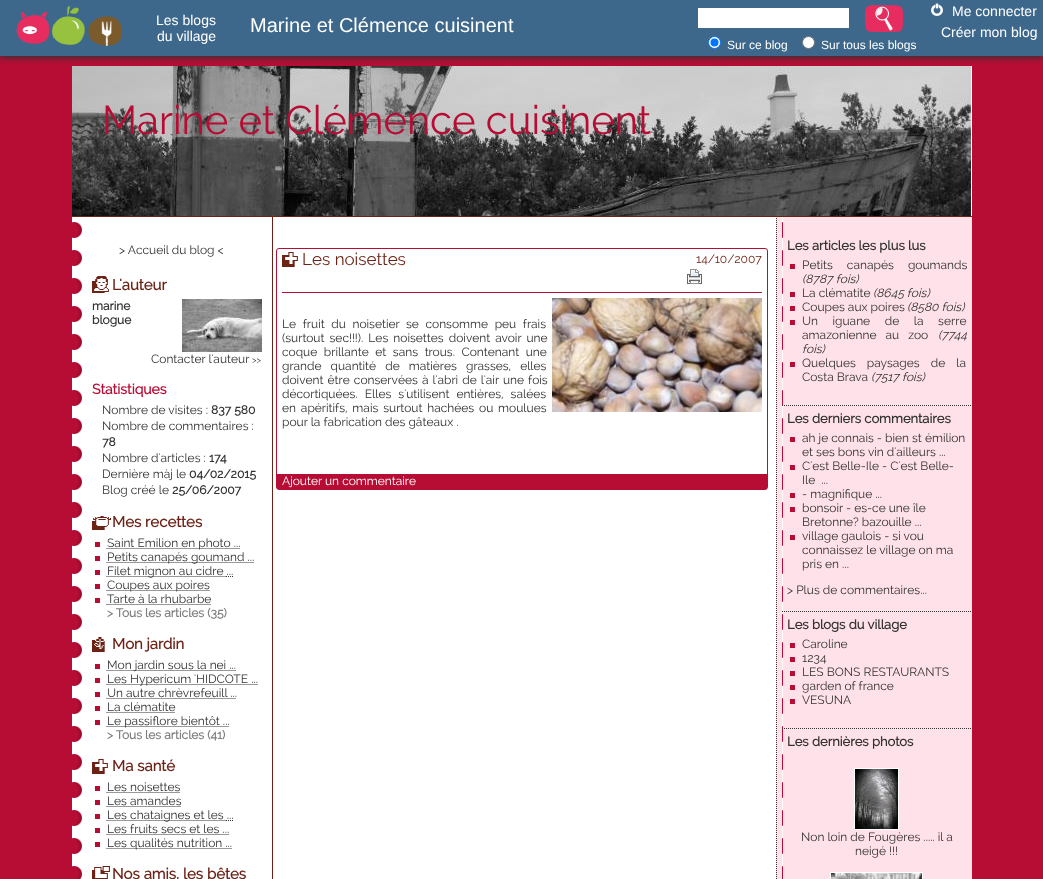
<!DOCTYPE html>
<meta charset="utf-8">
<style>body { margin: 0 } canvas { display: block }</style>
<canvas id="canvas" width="1043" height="879"></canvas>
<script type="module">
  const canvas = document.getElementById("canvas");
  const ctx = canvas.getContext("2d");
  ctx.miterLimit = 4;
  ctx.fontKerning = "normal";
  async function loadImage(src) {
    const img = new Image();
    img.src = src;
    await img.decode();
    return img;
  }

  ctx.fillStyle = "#b70d35";
  ctx.fillRect(0, 0, 1043, 879);
  ctx.fillStyle = "#ffffff";
  ctx.fillRect(971, 66, 1, 150);
  ctx.drawImage(await loadImage("img5.png"), 72, 66, 899, 150);
  ctx.fillStyle = "#333333";
  ctx.filter = "blur(3px)";
  ctx.beginPath();
  ctx.rect(0, 2, 1043, 56);
  ctx.fill();
  ctx.filter = "none";
  ctx.fillStyle = "#3d688b";
  ctx.fillRect(0, 0, 1043, 56);
  ctx.drawImage(await loadImage("img1.png"), 16, 5, 106, 41);
  ctx.font = "14px Liberation Sans";
  ctx.fillStyle = "#ffffff";
  ctx.fillText("Les blogs", 156, 25);
  ctx.fillText("du village", 157, 41);
  ctx.font = "20px Liberation Sans";
  ctx.fillText("Marine et Clémence cuisinent", 250, 32);
  ctx.drawImage(await loadImage("img2.png"), 931, 3, 12, 13);
  ctx.font = "14px Liberation Sans";
  ctx.fillText("Me connecter", 952, 16);
  ctx.fillText("Créer mon blog", 941, 37);
  ctx.fillRect(698, 8, 151, 20);
  ctx.drawImage(await loadImage("img3.png"), 865, 5, 38, 27);
  ctx.beginPath();
  ctx.arc(714.5, 42.5, 6, 0, Math.PI * 2);
  ctx.fill();
  ctx.strokeStyle = "#0075ff";
  ctx.stroke();
  ctx.fillStyle = "#0075ff";
  ctx.beginPath();
  ctx.arc(714.5, 42.5, 4, 0, Math.PI * 2);
  ctx.fill();
  ctx.font = "12px Liberation Sans";
  ctx.fillStyle = "#ffffff";
  ctx.fillText("Sur ce blog", 727, 49);
  ctx.beginPath();
  ctx.arc(808.5, 42.5, 6, 0, Math.PI * 2);
  ctx.fill();
  ctx.strokeStyle = "#767676";
  ctx.stroke();
  ctx.fillText("Sur tous les blogs", 821, 49);
  ctx.fillStyle = "#ffe2e9";
  ctx.fillRect(783, 217, 189, 662);
  ctx.drawImage(await loadImage("img4.png"), 72, 217, 711, 662);
  ctx.fillStyle = "#6d2216";
  ctx.fillRect(72, 216, 900, 1);
  ctx.font = "40px Raleway";
  ctx.fillStyle = "#b70d35";
  ctx.fillText("Marine et Clémence cuisinent", 102, 134);
  ctx.font = "12px Raleway";
  ctx.fillStyle = "#333333";
  ctx.fillText("> Accueil du blog <", 119, 254);
  ctx.drawImage(await loadImage("img6.png"), 92, 276, 17, 17);
  ctx.font = "bold 15px Raleway";
  ctx.fillStyle = "#6d2216";
  ctx.fillText("L'auteur", 112, 290);
  ctx.font = "bold 12px Raleway";
  ctx.fillStyle = "#333333";
  ctx.fillText("marine", 92, 310);
  ctx.fillText("blogue", 92, 324);
  ctx.drawImage(await loadImage("img7.png"), 182, 299, 80, 53);
  ctx.font = "12px Raleway";
  ctx.fillText("Contacter l'auteur", 151, 363);
  ctx.font = "9px Raleway";
  ctx.fillText(">>", 252, 363);
  ctx.font = "bold 14px Raleway";
  ctx.fillStyle = "#b70d35";
  ctx.fillText("Statistiques", 92, 394);
  ctx.font = "12px Raleway";
  ctx.fillStyle = "#333333";
  ctx.fillText("Nombre de visites :", 102, 414);
  ctx.font = "bold 12px Raleway";
  ctx.fillText("837 580", 211, 414);
  ctx.font = "12px Raleway";
  ctx.fillText("Nombre de commentaires :", 102, 430);
  ctx.font = "bold 12px Raleway";
  ctx.fillText("78", 102, 446);
  ctx.font = "12px Raleway";
  ctx.fillText("Nombre d'articles :", 102, 462);
  ctx.font = "bold 12px Raleway";
  ctx.fillText("174", 209, 462);
  ctx.font = "12px Raleway";
  ctx.fillText("Dernière màj le", 102, 478);
  ctx.font = "bold 12px Raleway";
  ctx.fillText("04/02/2015", 189, 478);
  ctx.font = "12px Raleway";
  ctx.fillText("Blog créé le", 102, 494);
  ctx.font = "bold 12px Raleway";
  ctx.fillText("25/06/2007", 172, 494);
  ctx.drawImage(await loadImage("img8.png"), 92, 516, 19, 14);
  ctx.font = "bold 15px Raleway";
  ctx.fillStyle = "#6d2216";
  ctx.fillText("Mes recettes", 112, 527);
  ctx.fillStyle = "#b70d35";
  ctx.fillRect(95, 542, 5, 5);
  ctx.beginPath();
  ctx.moveTo(106.5, 548.5);
  ctx.lineTo(240, 548.5);
  ctx.strokeStyle = "#333333";
  ctx.setLineDash([1, 1]);
  ctx.stroke();
  ctx.font = "12px Raleway";
  ctx.fillStyle = "#333333";
  ctx.fillText("Saint Emilion en photo ...", 107, 547);
  ctx.fillStyle = "#b70d35";
  ctx.fillRect(95, 556, 5, 5);
  ctx.beginPath();
  ctx.moveTo(106.5, 562.5);
  ctx.lineTo(254, 562.5);
  ctx.stroke();
  ctx.fillStyle = "#333333";
  ctx.fillText("Petits canapés goumand ...", 107, 561);
  ctx.fillStyle = "#b70d35";
  ctx.fillRect(95, 570, 5, 5);
  ctx.beginPath();
  ctx.moveTo(106.5, 576.5);
  ctx.lineTo(226, 576.5);
  ctx.stroke();
  ctx.fillStyle = "#333333";
  ctx.fillText("Filet mignon au cidre ...", 107, 575);
  ctx.beginPath();
  ctx.moveTo(226, 576.5);
  ctx.lineTo(227, 576.5);
  ctx.moveTo(228, 576.5);
  ctx.lineTo(229, 576.5);
  ctx.moveTo(230, 576.5);
  ctx.lineTo(231, 576.5);
  ctx.moveTo(232, 576.5);
  ctx.lineTo(233, 576.5);
  ctx.setLineDash([]);
  ctx.stroke();
  ctx.fillStyle = "#b70d35";
  ctx.fillRect(95, 584, 5, 5);
  ctx.beginPath();
  ctx.moveTo(106.5, 590.5);
  ctx.lineTo(209.5, 590.5);
  ctx.setLineDash([1, 1]);
  ctx.stroke();
  ctx.fillStyle = "#333333";
  ctx.fillText("Coupes aux poires", 107, 589);
  ctx.fillStyle = "#b70d35";
  ctx.fillRect(95, 598, 5, 5);
  ctx.fillStyle = "#333333";
  ctx.fillText("Tarte à la rhubarbe", 107, 603);
  ctx.beginPath();
  ctx.moveTo(106.5, 604.5);
  ctx.lineTo(211, 604.5);
  ctx.stroke();
  ctx.font = "bold 12px Raleway";
  ctx.fillStyle = "#7f7f7f";
  ctx.fillText("> Tous les articles (35)", 107, 617);
  ctx.drawImage(await loadImage("img9.png"), 92, 637, 13, 15);
  ctx.font = "bold 15px Raleway";
  ctx.fillStyle = "#6d2216";
  ctx.fillText("Mon jardin", 112, 649);
  ctx.fillStyle = "#b70d35";
  ctx.fillRect(95, 664, 5, 5);
  ctx.beginPath();
  ctx.moveTo(106.5, 670.5);
  ctx.lineTo(235.5, 670.5);
  ctx.stroke();
  ctx.font = "12px Raleway";
  ctx.fillStyle = "#333333";
  ctx.fillText("Mon jardin sous la nei ...", 107, 669);
  ctx.fillStyle = "#b70d35";
  ctx.fillRect(95, 678, 5, 5);
  ctx.beginPath();
  ctx.moveTo(106.5, 684.5);
  ctx.lineTo(257.5, 684.5);
  ctx.stroke();
  ctx.fillStyle = "#333333";
  ctx.fillText("Les Hypericum 'HIDCOTE ...", 107, 683);
  ctx.fillStyle = "#b70d35";
  ctx.fillRect(95, 692, 5, 5);
  ctx.fillStyle = "#333333";
  ctx.fillText("Un autre chrèvrefeuill ...", 107, 697);
  ctx.beginPath();
  ctx.moveTo(106.5, 698.5);
  ctx.lineTo(236.5, 698.5);
  ctx.stroke();
  ctx.fillStyle = "#b70d35";
  ctx.fillRect(95, 706, 5, 5);
  ctx.fillStyle = "#333333";
  ctx.fillText("La clématite", 107, 711);
  ctx.beginPath();
  ctx.moveTo(106.5, 712.5);
  ctx.lineTo(175, 712.5);
  ctx.stroke();
  ctx.fillStyle = "#b70d35";
  ctx.fillRect(95, 720, 5, 5);
  ctx.beginPath();
  ctx.moveTo(106.5, 726.5);
  ctx.lineTo(222.5, 726.5);
  ctx.stroke();
  ctx.fillStyle = "#333333";
  ctx.fillText("Le passiflore bientôt ...", 107, 725);
  ctx.beginPath();
  ctx.moveTo(222.5, 726.5);
  ctx.lineTo(223.5, 726.5);
  ctx.moveTo(224.5, 726.5);
  ctx.lineTo(225.5, 726.5);
  ctx.moveTo(226.5, 726.5);
  ctx.lineTo(227.5, 726.5);
  ctx.moveTo(228.5, 726.5);
  ctx.lineTo(229, 726.5);
  ctx.setLineDash([]);
  ctx.stroke();
  ctx.font = "bold 12px Raleway";
  ctx.fillStyle = "#7f7f7f";
  ctx.fillText("> Tous les articles (41)", 107, 739);
  ctx.drawImage(await loadImage("img10.png"), 92, 759, 16, 15);
  ctx.font = "bold 15px Raleway";
  ctx.fillStyle = "#6d2216";
  ctx.fillText("Ma santé", 112, 771);
  ctx.fillStyle = "#b70d35";
  ctx.fillRect(95, 786, 5, 5);
  ctx.font = "12px Raleway";
  ctx.fillStyle = "#333333";
  ctx.fillText("Les noisettes", 107, 791);
  ctx.beginPath();
  ctx.moveTo(106.5, 792.5);
  ctx.lineTo(180, 792.5);
  ctx.setLineDash([1, 1]);
  ctx.stroke();
  ctx.fillStyle = "#b70d35";
  ctx.fillRect(95, 800, 5, 5);
  ctx.fillStyle = "#333333";
  ctx.fillText("Les amandes", 107, 805);
  ctx.beginPath();
  ctx.moveTo(106.5, 806.5);
  ctx.lineTo(181, 806.5);
  ctx.stroke();
  ctx.fillStyle = "#b70d35";
  ctx.fillRect(95, 814, 5, 5);
  ctx.beginPath();
  ctx.moveTo(106.5, 820.5);
  ctx.lineTo(226, 820.5);
  ctx.stroke();
  ctx.fillStyle = "#333333";
  ctx.fillText("Les chataignes et les ...", 107, 819);
  ctx.beginPath();
  ctx.moveTo(226, 820.5);
  ctx.lineTo(227, 820.5);
  ctx.moveTo(228, 820.5);
  ctx.lineTo(229, 820.5);
  ctx.moveTo(230, 820.5);
  ctx.lineTo(231, 820.5);
  ctx.moveTo(232, 820.5);
  ctx.lineTo(233, 820.5);
  ctx.setLineDash([]);
  ctx.stroke();
  ctx.fillStyle = "#b70d35";
  ctx.fillRect(95, 828, 5, 5);
  ctx.fillStyle = "#333333";
  ctx.fillText("Les fruits secs et les ...", 107, 833);
  ctx.beginPath();
  ctx.moveTo(106.5, 834.5);
  ctx.lineTo(229, 834.5);
  ctx.setLineDash([1, 1]);
  ctx.stroke();
  ctx.fillStyle = "#b70d35";
  ctx.fillRect(95, 842, 5, 5);
  ctx.beginPath();
  ctx.moveTo(106.5, 848.5);
  ctx.lineTo(231.5, 848.5);
  ctx.stroke();
  ctx.fillStyle = "#333333";
  ctx.fillText("Les qualités nutrition ...", 107, 847);
  ctx.drawImage(await loadImage("img11.png"), 92, 866, 18, 13);
  ctx.font = "bold 15px Raleway";
  ctx.fillStyle = "#6d2216";
  ctx.fillText("Nos amis, les bêtes", 112, 879);
  ctx.beginPath();
  ctx.roundRect(276.5, 248.5, 491, 241, 2.5);
  ctx.strokeStyle = "#b70d35";
  ctx.setLineDash([]);
  ctx.stroke();
  ctx.drawImage(await loadImage("img10.png"), 282, 252, 16, 15);
  ctx.fillStyle = "#b70d35";
  ctx.fillRect(282, 292, 480, 1);
  ctx.font = "17px Raleway";
  ctx.fillStyle = "#6d2216";
  ctx.fillText("Les noisettes", 302, 265);
  ctx.font = "12px Raleway";
  ctx.fillText("14/10/2007", 696, 263);
  ctx.drawImage(await loadImage("img12.png"), 687, 269, 15, 15);
  ctx.wordSpacing = "3.5px";
  ctx.fillStyle = "#333333";
  ctx.fillText("Le fruit du noisetier se consomme peu frais", 282, 328);
  ctx.wordSpacing = "2px";
  ctx.fillText("(surtout sec!!!). Les noisettes doivent avoir une", 282, 342);
  ctx.wordSpacing = "3.5px";
  ctx.fillText("coque brillante et sans trous. Contenant une", 282, 356);
  ctx.wordSpacing = "6px";
  ctx.fillText("grande quantité de matières grasses, elles", 282, 370);
  ctx.wordSpacing = "1px";
  ctx.fillText("doivent être conservées à l'abri de l'air une fois", 282, 384);
  ctx.wordSpacing = "4px";
  ctx.fillText("décortiquées. Elles s'utilisent entières, salées", 282, 398);
  ctx.wordSpacing = "1.75px";
  ctx.fillText("en apéritifs, mais surtout hachées ou moulues", 282, 412);
  ctx.wordSpacing = "0px";
  ctx.fillText("pour la fabrication des gâteaux .", 282, 426);
  ctx.drawImage(await loadImage("img13.png"), 552, 298, 210, 114);
  ctx.fillStyle = "#b70d35";
  ctx.fillRect(277, 474, 490, 15);
  ctx.fillStyle = "#ffffff";
  ctx.fillText("Ajouter un commentaire", 282, 485);
  ctx.drawImage(await loadImage("img14.png"), 782, 405, 189, 1);
  ctx.font = "bold 13px Raleway";
  ctx.fillStyle = "#333333";
  ctx.fillText("Les articles les plus lus", 787, 250);
  ctx.fillStyle = "#b70d35";
  ctx.fillRect(790, 264, 5, 5);
  ctx.wordSpacing = "11px";
  ctx.font = "12px Raleway";
  ctx.fillStyle = "#333333";
  ctx.fillText("Petits canapés goumands", 802, 269);
  ctx.wordSpacing = "0px";
  ctx.font = "italic 12px Raleway";
  ctx.fillText("(8787 fois)", 802, 283);
  ctx.fillStyle = "#b70d35";
  ctx.fillRect(790, 292, 5, 5);
  ctx.font = "12px Raleway";
  ctx.fillStyle = "#333333";
  ctx.fillText("La clématite", 802, 297);
  ctx.font = "italic 12px Raleway";
  ctx.fillText("(8645 fois)", 873, 297);
  ctx.fillStyle = "#b70d35";
  ctx.fillRect(790, 306, 5, 5);
  ctx.font = "12px Raleway";
  ctx.fillStyle = "#333333";
  ctx.fillText("Coupes aux poires", 802, 311);
  ctx.font = "italic 12px Raleway";
  ctx.fillText("(8580 fois)", 907, 311);
  ctx.fillStyle = "#b70d35";
  ctx.fillRect(790, 320, 5, 5);
  ctx.wordSpacing = "11.5px";
  ctx.font = "12px Raleway";
  ctx.fillStyle = "#333333";
  ctx.fillText("Un iguane de la serre", 802, 325);
  ctx.wordSpacing = "6px";
  ctx.fillText("amazonienne au zoo", 802, 339);
  ctx.wordSpacing = "0px";
  ctx.font = "italic 12px Raleway";
  ctx.fillText("(7744", 938, 339);
  ctx.fillText("fois)", 802, 353);
  ctx.fillStyle = "#b70d35";
  ctx.fillRect(790, 362, 5, 5);
  ctx.wordSpacing = "8px";
  ctx.font = "12px Raleway";
  ctx.fillStyle = "#333333";
  ctx.fillText("Quelques paysages de la", 802, 367);
  ctx.wordSpacing = "0px";
  ctx.fillText("Costa Brava", 802, 381);
  ctx.font = "italic 12px Raleway";
  ctx.fillText("(7517 fois)", 871, 381);
  ctx.drawImage(await loadImage("img14.png"), 782, 611, 189, 1);
  ctx.font = "bold 13px Raleway";
  ctx.fillText("Les derniers commentaires", 787, 423);
  ctx.fillStyle = "#b70d35";
  ctx.fillRect(790, 437, 5, 5);
  ctx.font = "12px Raleway";
  ctx.fillStyle = "#333333";
  ctx.fillText("ah je connais - bien st émilion", 802, 442);
  ctx.fillText("et ses bons vin d'ailleurs ...", 802, 456);
  ctx.fillStyle = "#b70d35";
  ctx.fillRect(790, 465, 5, 5);
  ctx.fillStyle = "#333333";
  ctx.fillText("C'est Belle-Ile - C'est Belle-", 802, 470);
  ctx.fillText("Ile  ...", 802, 484);
  ctx.fillStyle = "#b70d35";
  ctx.fillRect(790, 493, 5, 5);
  ctx.fillStyle = "#333333";
  ctx.fillText("- magnifique ...", 802, 498);
  ctx.fillStyle = "#b70d35";
  ctx.fillRect(790, 507, 5, 5);
  ctx.fillStyle = "#333333";
  ctx.fillText("bonsoir - es-ce une île", 802, 512);
  ctx.fillText("Bretonne? bazouille ...", 802, 526);
  ctx.fillStyle = "#b70d35";
  ctx.fillRect(790, 535, 5, 5);
  ctx.fillStyle = "#333333";
  ctx.fillText("village gaulois - si vou", 802, 540);
  ctx.fillText("connaissez le village on ma", 802, 554);
  ctx.fillText("pris en ...", 802, 568);
  ctx.fillText("> Plus de commentaires...", 787, 594);
  ctx.drawImage(await loadImage("img14.png"), 782, 728, 189, 1);
  ctx.font = "bold 13px Raleway";
  ctx.fillText("Les blogs du village", 787, 629);
  ctx.fillStyle = "#b70d35";
  ctx.fillRect(790, 643, 5, 5);
  ctx.font = "12px Raleway";
  ctx.fillStyle = "#333333";
  ctx.fillText("Caroline", 802, 648);
  ctx.fillStyle = "#b70d35";
  ctx.fillRect(790, 657, 5, 5);
  ctx.fillStyle = "#333333";
  ctx.fillText("1234", 802, 662);
  ctx.fillStyle = "#b70d35";
  ctx.fillRect(790, 671, 5, 5);
  ctx.fillStyle = "#333333";
  ctx.fillText("LES BONS RESTAURANTS", 802, 676);
  ctx.fillStyle = "#b70d35";
  ctx.fillRect(790, 685, 5, 5);
  ctx.fillStyle = "#333333";
  ctx.fillText("garden of france", 802, 690);
  ctx.fillStyle = "#b70d35";
  ctx.fillRect(790, 699, 5, 5);
  ctx.fillStyle = "#333333";
  ctx.fillText("VESUNA", 802, 704);
  ctx.font = "bold 13px Raleway";
  ctx.fillText("Les dernières photos", 787, 746);
  ctx.strokeStyle = "#ffffff";
  ctx.strokeRect(854.5, 768.5, 44, 61);
  ctx.drawImage(await loadImage("img15.png"), 855, 769, 43, 60);
  ctx.font = "12px Raleway";
  ctx.fillText("Non loin de Fougères ..... il a", 801, 841);
  ctx.fillText("neigé !!!", 855, 855);
  ctx.strokeRect(830.5, 872.5, 92, 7);
  ctx.drawImage(await loadImage("img16.png"), 831, 873, 91, 6);
</script>
